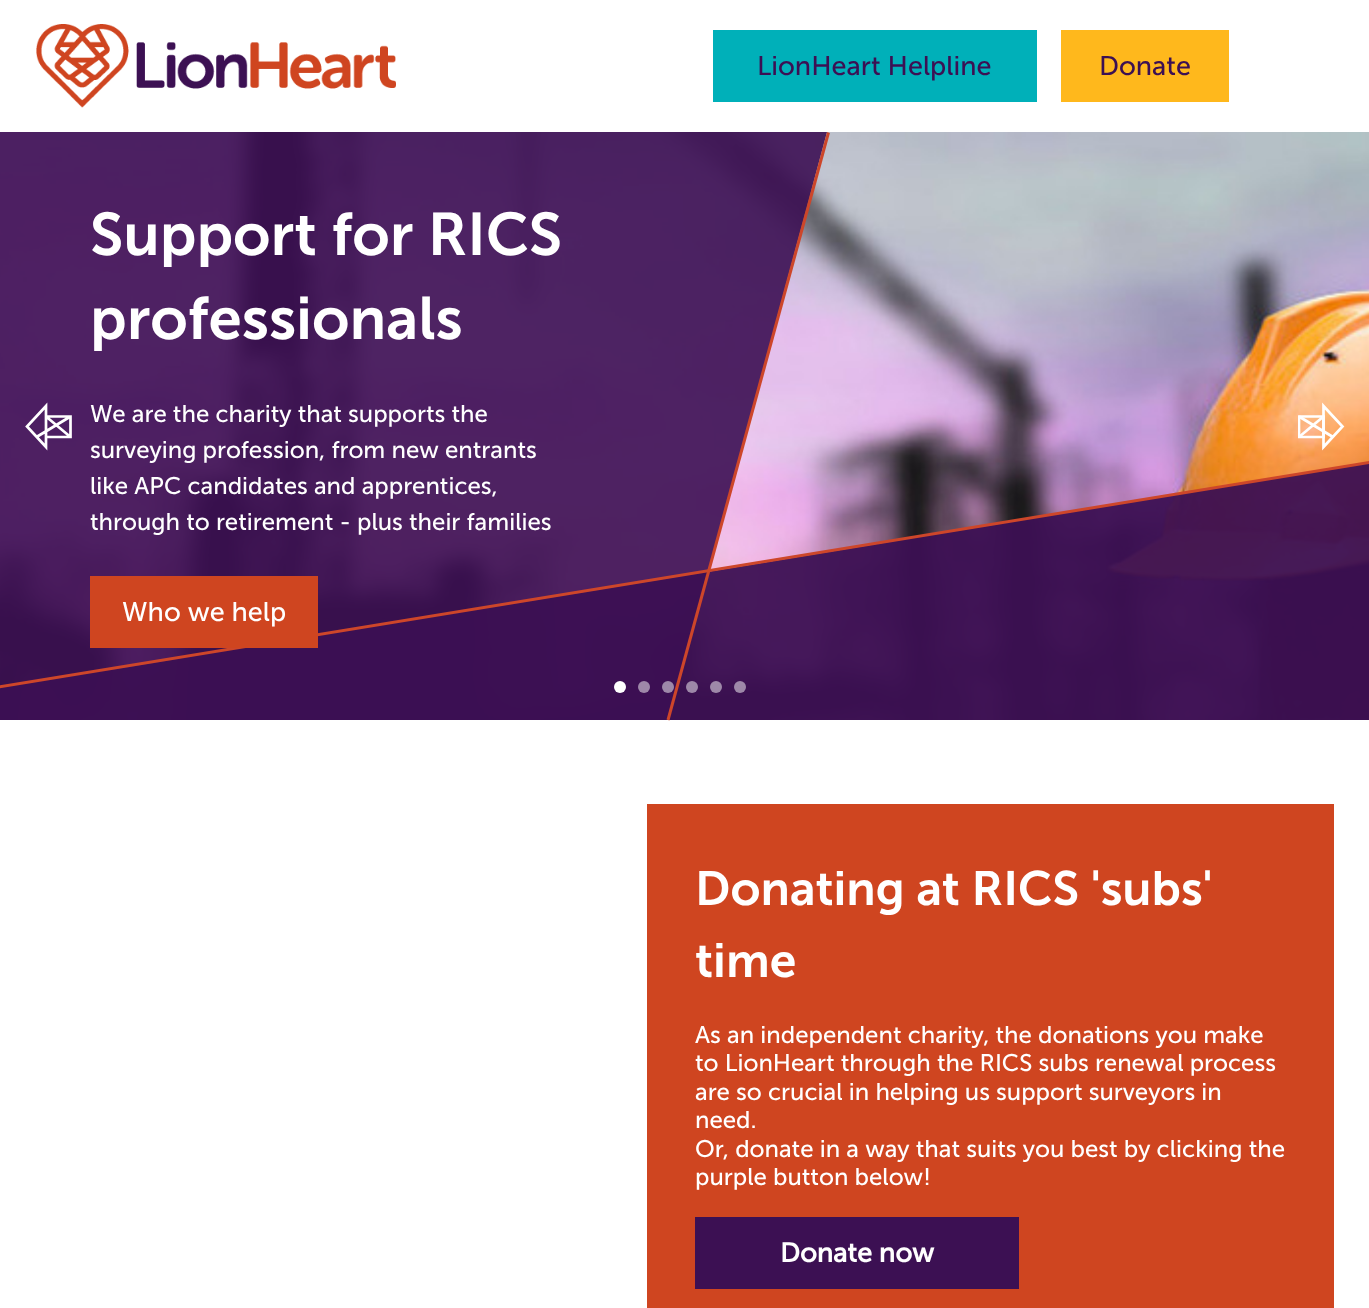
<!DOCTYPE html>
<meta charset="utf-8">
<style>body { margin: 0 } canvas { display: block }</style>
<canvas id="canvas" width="1369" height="1308"></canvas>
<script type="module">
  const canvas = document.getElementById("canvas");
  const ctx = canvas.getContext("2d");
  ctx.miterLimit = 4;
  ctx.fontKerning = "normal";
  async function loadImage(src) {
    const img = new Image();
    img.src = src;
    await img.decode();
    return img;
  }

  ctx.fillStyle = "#ffffff";
  ctx.fillRect(0, 0, 1369, 1308);
  ctx.drawImage(await loadImage("img1.png"), 36, 24, 360, 84);
  ctx.fillStyle = "#00b0b9";
  ctx.fillRect(713, 30, 324, 72);
  ctx.font = "27px Museo Sans";
  ctx.fillStyle = "#3c1053";
  ctx.fillText("LionHeart Helpline", 757, 75);
  ctx.fillStyle = "#ffb81c";
  ctx.fillRect(1061, 30, 168, 72);
  ctx.fillStyle = "#3c1053";
  ctx.fillText("Donate", 1099, 75);
  ctx.drawImage(await loadImage("img2.png"), 0, 132, 1369, 588);
  ctx.fillStyle = "rgba(60, 16, 83, 0.95)";
  ctx.beginPath();
  ctx.moveTo(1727, 404);
  ctx.lineTo(-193, 720);
  ctx.lineTo(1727, 720);
  ctx.closePath();
  ctx.fill();
  ctx.fillStyle = "rgba(60, 16, 83, 0.9)";
  ctx.beginPath();
  ctx.moveTo(-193, 132);
  ctx.lineTo(827, 132);
  ctx.lineTo(669, 720);
  ctx.lineTo(-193, 720);
  ctx.closePath();
  ctx.fill();
  ctx.beginPath();
  ctx.moveTo(46, 416.5);
  ctx.lineTo(70.5, 437);
  ctx.moveTo(70.5, 416.5);
  ctx.lineTo(36.5, 437);
  ctx.moveTo(46, 437);
  ctx.lineTo(46, 416.5);
  ctx.lineTo(70.5, 416.5);
  ctx.lineTo(70.5, 437);
  ctx.closePath();
  ctx.moveTo(46, 406);
  ctx.lineTo(46, 447);
  ctx.lineTo(27, 426.5);
  ctx.closePath();
  ctx.strokeStyle = "#ffffff";
  ctx.lineWidth = 2.7;
  ctx.stroke();
  ctx.beginPath();
  ctx.moveTo(828.5, 132.5);
  ctx.lineTo(668, 720);
  ctx.strokeStyle = "#cd462a";
  ctx.lineWidth = 3;
  ctx.stroke();
  ctx.beginPath();
  ctx.moveTo(-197.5, 719);
  ctx.lineTo(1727, 404);
  ctx.stroke();
  ctx.font = "600 60px Museo Sans";
  ctx.fillStyle = "#ffffff";
  ctx.fillText("Support for RICS", 90, 255);
  ctx.fillText("professionals", 90, 339);
  ctx.font = "24px Museo Sans";
  ctx.fillText("We are the charity that supports the", 90, 422);
  ctx.fillText("surveying profession, from new entrants", 90, 458);
  ctx.fillText("like APC candidates and apprentices,", 90, 494);
  ctx.fillText("through to retirement - plus their families", 90, 530);
  ctx.fillStyle = "#cf4520";
  ctx.fillRect(90, 576, 228, 72);
  ctx.font = "27px Museo Sans";
  ctx.fillStyle = "#ffffff";
  ctx.fillText("Who we help", 122, 621);
  ctx.beginPath();
  ctx.moveTo(1323.5, 416.5);
  ctx.lineTo(1299, 437);
  ctx.moveTo(1299, 416.5);
  ctx.lineTo(1333, 437);
  ctx.strokeStyle = "#ffffff";
  ctx.lineWidth = 2.7;
  ctx.stroke();
  ctx.save();
  ctx.beginPath();
  ctx.rect(1298, 402, 48, 48);
  ctx.clip();
  ctx.beginPath();
  ctx.moveTo(1323.5, 437);
  ctx.lineTo(1323.5, 416.5);
  ctx.lineTo(1299, 416.5);
  ctx.lineTo(1299, 437);
  ctx.closePath();
  ctx.stroke();
  ctx.restore();
  ctx.beginPath();
  ctx.moveTo(1323.5, 406);
  ctx.lineTo(1323.5, 447);
  ctx.lineTo(1342.5, 426.5);
  ctx.closePath();
  ctx.stroke();
  ctx.beginPath();
  ctx.arc(620, 687, 6, 0, Math.PI * 2);
  ctx.fill();
  ctx.fillStyle = "#9e88a9";
  ctx.beginPath();
  ctx.arc(644, 687, 6, 0, Math.PI * 2);
  ctx.fill();
  ctx.fillStyle = "#9d88a9";
  ctx.beginPath();
  ctx.arc(668, 687, 6, 0, Math.PI * 2);
  ctx.fill();
  ctx.fillStyle = "#9d88a8";
  ctx.beginPath();
  ctx.arc(692, 687, 6, 0, Math.PI * 2);
  ctx.fill();
  ctx.fillStyle = "rgba(255, 255, 255, 0.5)";
  ctx.beginPath();
  ctx.arc(716, 687, 6, 0, Math.PI * 2);
  ctx.fill();
  ctx.beginPath();
  ctx.arc(740, 687, 6, 0, Math.PI * 2);
  ctx.fill();
  ctx.fillStyle = "#cf4520";
  ctx.fillRect(647, 804, 687, 504);
  ctx.font = "600 48px Museo Sans";
  ctx.fillStyle = "#ffffff";
  ctx.fillText("Donating at RICS 'subs'", 695, 905);
  ctx.fillText("time", 695, 977);
  ctx.font = "24px Museo Sans";
  ctx.fillText("As an independent charity, the donations you make", 695, 1043);
  ctx.fillText("to LionHeart through the RICS subs renewal process", 695, 1071);
  ctx.fillText("are so crucial in helping us support surveyors in", 695, 1100);
  ctx.fillText("need.", 695, 1128);
  ctx.fillText("Or, donate in a way that suits you best by clicking the", 695, 1157);
  ctx.fillText("purple button below!", 695, 1185);
  ctx.fillStyle = "#3c1053";
  ctx.fillRect(695, 1217, 324, 72);
  ctx.font = "bold 27px Museo Sans";
  ctx.fillStyle = "#ffffff";
  ctx.fillText("Donate now", 780, 1262);
</script>
